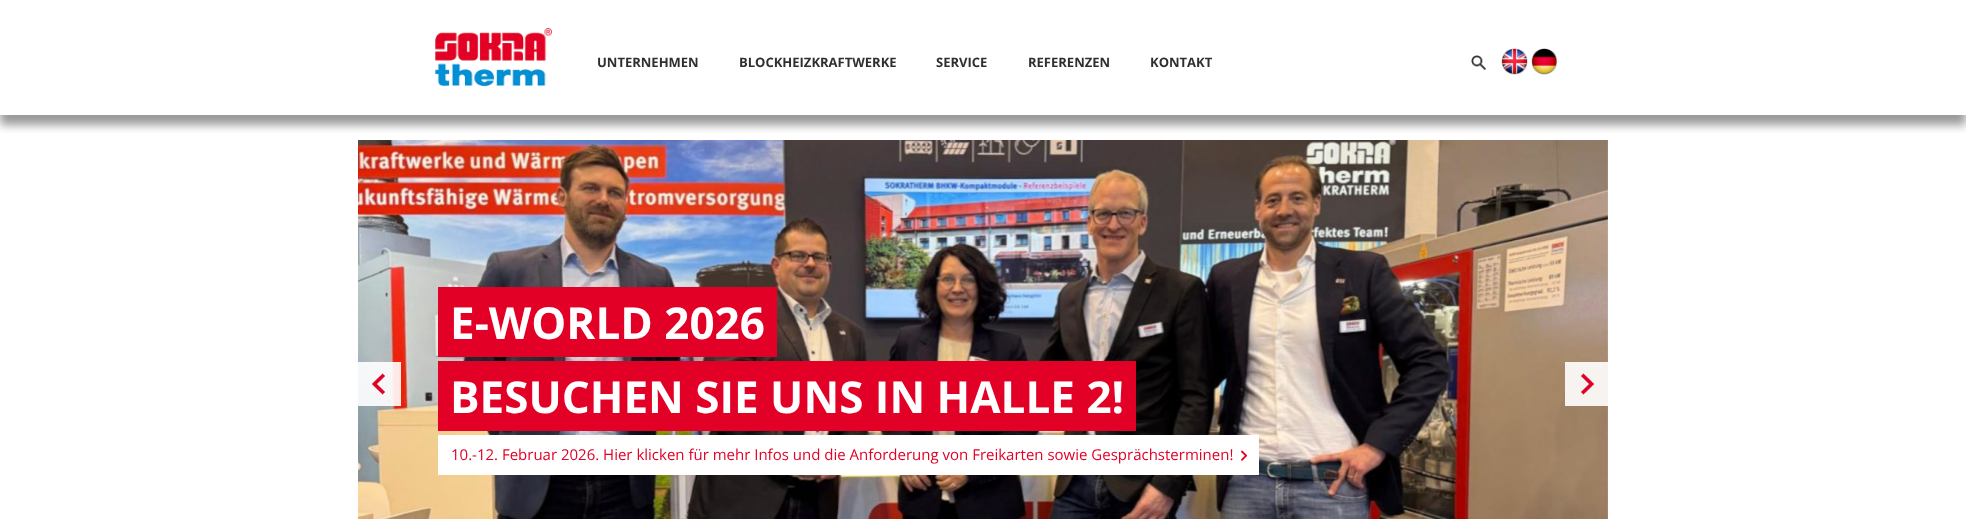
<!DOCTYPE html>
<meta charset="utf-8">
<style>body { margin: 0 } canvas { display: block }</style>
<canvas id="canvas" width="1966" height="519"></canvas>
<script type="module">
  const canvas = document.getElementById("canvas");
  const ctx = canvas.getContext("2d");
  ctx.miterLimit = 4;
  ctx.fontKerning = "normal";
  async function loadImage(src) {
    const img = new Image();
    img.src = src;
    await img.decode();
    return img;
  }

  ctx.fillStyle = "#ffffff";
  ctx.fillRect(0, 0, 1966, 519);
  ctx.drawImage(await loadImage("img6.png"), 358, 140, 1250, 379);
  ctx.save();
  ctx.beginPath();
  ctx.rect(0, 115, 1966, 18);
  ctx.clip();
  ctx.fillStyle = "rgba(0, 0, 0, 0.4)";
  ctx.filter = "blur(5px)";
  ctx.beginPath();
  ctx.rect(0, 10, 1966, 115);
  ctx.fill();
  ctx.filter = "none";
  ctx.restore();
  ctx.drawImage(await loadImage("img1.png"), 435, 28, 117, 58);
  ctx.font = "bold 13px Open Sans";
  ctx.fillStyle = "#2f2f2f";
  ctx.fillText("UNTERNEHMEN", 597, 67);
  ctx.fillText("BLOCKHEIZKRAFTWERKE", 739, 67);
  ctx.fillText("SERVICE", 936, 67);
  ctx.fillText("REFERENZEN", 1028, 67);
  ctx.fillText("KONTAKT", 1150, 67);
  ctx.drawImage(await loadImage("img2.png"), 1471, 55, 15, 15);
  ctx.drawImage(await loadImage("img3.png"), 1501, 48, 27, 27);
  ctx.drawImage(await loadImage("img4.png"), 1531, 48, 27, 27);
  ctx.drawImage(await loadImage("img5.png"), 358, 362, 43, 44);
  ctx.fillStyle = "#e20026";
  ctx.fillRect(438, 287, 339, 70);
  ctx.font = "bold 44px Open Sans";
  ctx.fillStyle = "#ffffff";
  ctx.fillText("E-WORLD 2026", 450, 339);
  ctx.fillStyle = "#e20026";
  ctx.fillRect(438, 361, 698, 70);
  ctx.fillStyle = "#ffffff";
  ctx.fillText("BESUCHEN SIE UNS IN HALLE 2!", 450, 413);
  ctx.fillRect(438, 435, 821, 40);
  ctx.drawImage(await loadImage("img7.png"), 1241, 450, 6, 11);
  ctx.font = "15px Open Sans";
  ctx.fillStyle = "#e20026";
  ctx.fillText("10.-12. Februar 2026. Hier klicken für mehr Infos und die Anforderung von Freikarten sowie Gesprächsterminen!", 451, 460);
  ctx.drawImage(await loadImage("img8.png"), 1565, 362, 43, 44);
</script>
